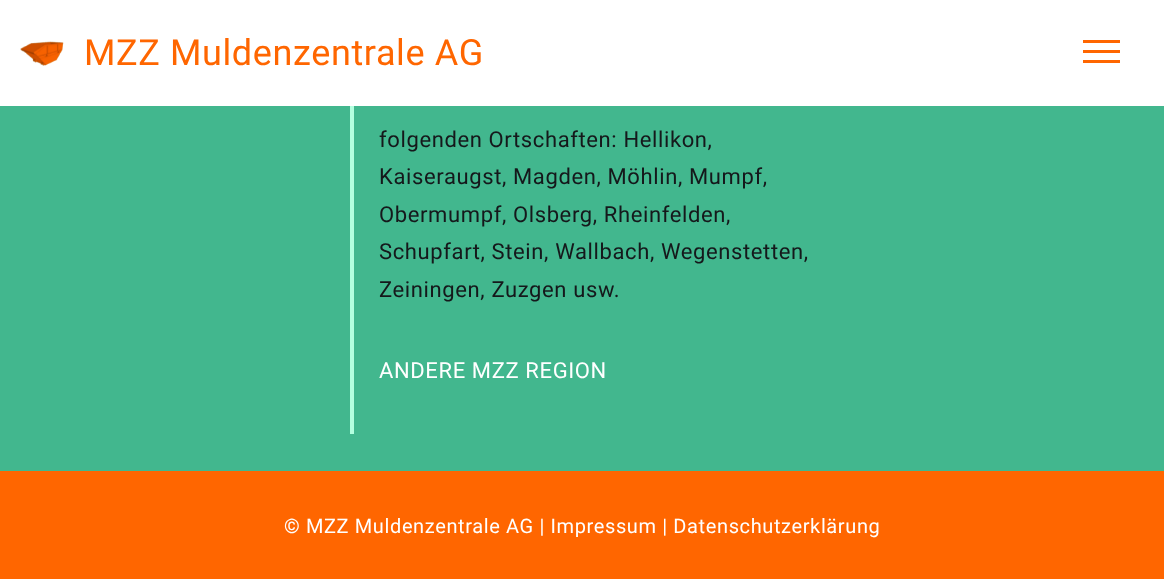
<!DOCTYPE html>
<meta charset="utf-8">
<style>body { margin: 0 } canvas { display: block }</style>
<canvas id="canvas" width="1164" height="579"></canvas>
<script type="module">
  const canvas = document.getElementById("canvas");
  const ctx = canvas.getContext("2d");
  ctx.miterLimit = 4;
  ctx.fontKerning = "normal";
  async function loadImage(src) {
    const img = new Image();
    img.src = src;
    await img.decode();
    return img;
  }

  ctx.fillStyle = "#42b78e";
  ctx.fillRect(0, 0, 1164, 579);
  ctx.fillStyle = "#ffffff";
  ctx.fillRect(0, 0, 1164, 106);
  ctx.drawImage(await loadImage("img1.png"), 20, 41, 44, 25);
  ctx.drawImage(await loadImage("img2.png"), 20, 41, 44, 25);
  ctx.letterSpacing = "0.62px";
  ctx.font = "36px Roboto";
  ctx.fillStyle = "#ff6600";
  ctx.fillText("MZZ Muldenzentrale AG", 84, 65);
  ctx.fillRect(1083, 40, 37, 3);
  ctx.fillRect(1083, 50, 37, 3);
  ctx.fillRect(1083, 60, 37, 3);
  ctx.fillStyle = "#b3ffdf";
  ctx.fillRect(350, 106, 4, 328);
  ctx.font = "22px Roboto";
  ctx.fillStyle = "#15181b";
  ctx.fillText("folgenden Ortschaften: Hellikon,", 379, 147);
  ctx.fillText("Kaiseraugst, Magden, Möhlin, Mumpf,", 379, 184);
  ctx.fillText("Obermumpf, Olsberg, Rheinfelden,", 379, 222);
  ctx.fillText("Schupfart, Stein, Wallbach, Wegenstetten,", 379, 259);
  ctx.fillText("Zeiningen, Zuzgen usw.", 379, 297);
  ctx.fillStyle = "#ffffff";
  ctx.fillText("ANDERE MZZ REGION", 379, 378);
  ctx.fillStyle = "#ff6600";
  ctx.fillRect(0, 471, 1164, 108);
  ctx.font = "20px Roboto";
  ctx.fillStyle = "#ffffff";
  ctx.fillText("© MZZ Muldenzentrale AG | Impressum | Datenschutzerklärung", 284, 533);
</script>
